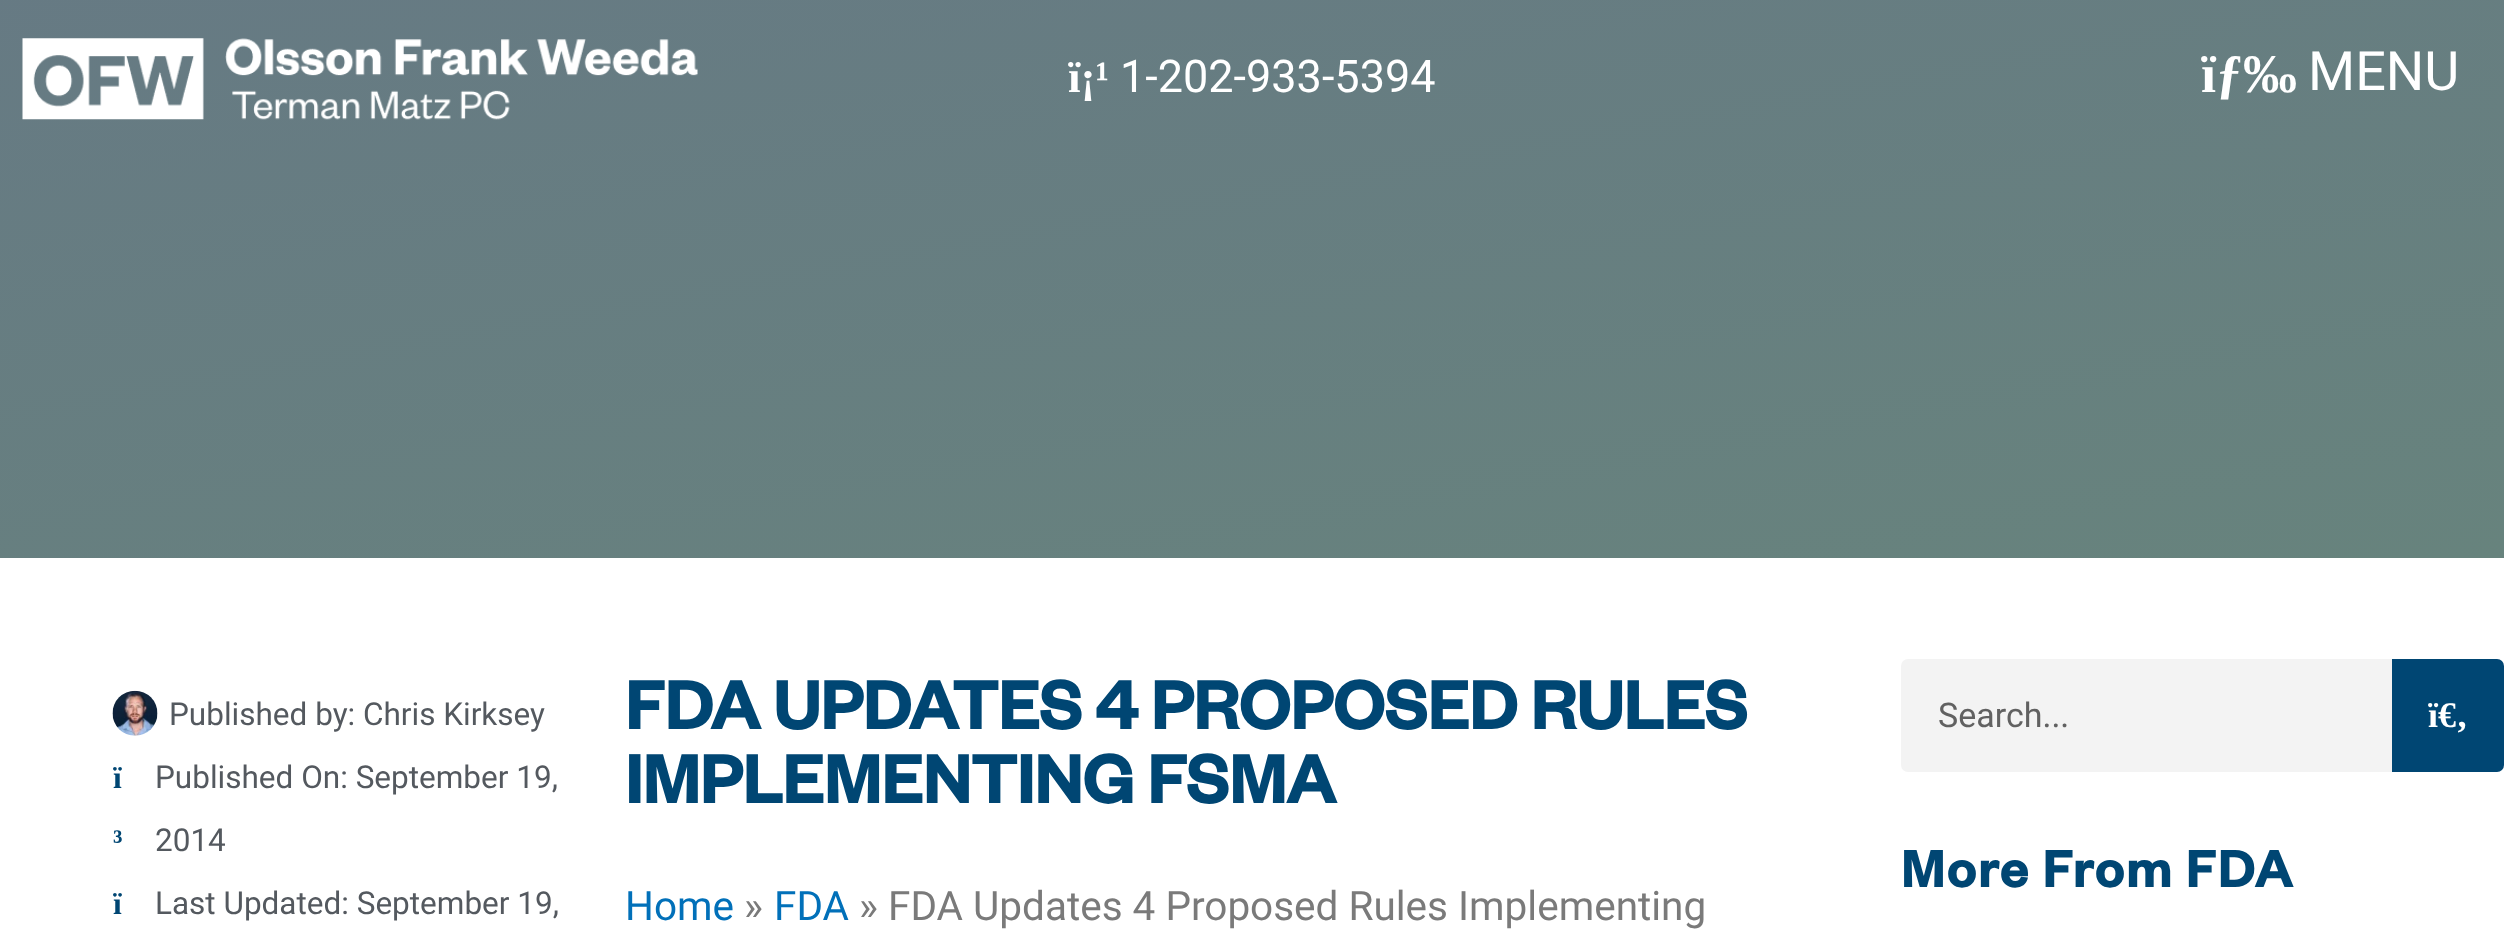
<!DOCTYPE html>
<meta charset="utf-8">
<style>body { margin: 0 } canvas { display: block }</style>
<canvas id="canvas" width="2504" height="941"></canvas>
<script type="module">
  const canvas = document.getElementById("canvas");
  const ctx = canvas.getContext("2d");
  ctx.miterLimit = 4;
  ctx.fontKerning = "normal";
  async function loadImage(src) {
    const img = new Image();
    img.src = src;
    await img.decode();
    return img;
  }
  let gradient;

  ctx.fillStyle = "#ffffff";
  ctx.fillRect(0, 0, 2504, 941);
  gradient = ctx.createLinearGradient(1147, -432, 1357, 760);
  gradient.addColorStop(0, "#667885");
  gradient.addColorStop(1, "#67837d");
  ctx.fillStyle = gradient;
  ctx.fillRect(0, 0, 2504, 558);
  ctx.drawImage(await loadImage("img1.png"), 22, 38, 676, 82);
  ctx.font = "bold 45px Liberation Serif";
  ctx.fillStyle = "#ffffff";
  ctx.fillText("ï¡¹", 1068, 92);
  ctx.font = "45px Roboto";
  ctx.fillText("1-202-933-5394", 1120, 92);
  ctx.font = "bold 54px Liberation Serif";
  ctx.fillText("ïƒ‰", 2201, 92);
  ctx.font = "54px Roboto";
  ctx.fillText("MENU", 2308, 90);
  ctx.drawImage(await loadImage("img2.png"), 112, 690, 46, 46);
  ctx.font = "31.5px Roboto";
  ctx.fillStyle = "#54595f";
  ctx.fillText("Published by: Chris Kirksey", 169, 725);
  ctx.font = "bold 31.5px Liberation Serif";
  ctx.fillStyle = "#004673";
  ctx.fillText("ï", 113, 788);
  ctx.fillText("³", 113, 851);
  ctx.font = "31.5px Roboto";
  ctx.fillStyle = "#54595f";
  ctx.fillText("Published On: September 19,", 155, 788);
  ctx.fillText("2014", 155, 851);
  ctx.font = "bold 31.5px Liberation Serif";
  ctx.fillStyle = "#004673";
  ctx.fillText("ï", 113, 914);
  ctx.font = "31.5px Roboto";
  ctx.fillStyle = "#54595f";
  ctx.fillText("Last Updated: September 19,", 155, 914);
  ctx.font = "bold 74.25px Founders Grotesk";
  ctx.fillStyle = "#004673";
  ctx.fillText("FDA UPDATES 4 PROPOSED RULES", 625, 729);
  ctx.fillText("IMPLEMENTING FSMA", 625, 803);
  ctx.font = "40.5px Roboto";
  ctx.fillStyle = "#0170b9";
  ctx.fillText("Home", 625, 920);
  ctx.fillStyle = "#7a7a7a";
  ctx.fillText("»", 744, 920);
  ctx.fillStyle = "#0170b9";
  ctx.fillText("FDA", 774, 920);
  ctx.fillStyle = "#7a7a7a";
  ctx.fillText("» FDA Updates 4 Proposed Rules Implementing", 859, 920);
  ctx.fillStyle = "#f3f3f3";
  ctx.beginPath();
  ctx.roundRect(1901, 659, 603, 113, 7);
  ctx.fill();
  ctx.font = "34px Roboto";
  ctx.fillStyle = "#616161";
  ctx.fillText("Search...", 1938, 727);
  ctx.fillStyle = "#004673";
  ctx.beginPath();
  ctx.roundRect(2392, 659, 112, 113, [0, 7, 7, 0]);
  ctx.fill();
  ctx.font = "bold 36px Liberation Serif";
  ctx.fillStyle = "#ffffff";
  ctx.fillText("ï€‚", 2428, 727);
  ctx.letterSpacing = "2.25px";
  ctx.font = "bold 56.25px Founders Grotesk";
  ctx.fillStyle = "#004673";
  ctx.fillText("More From FDA", 1901, 887);
</script>
